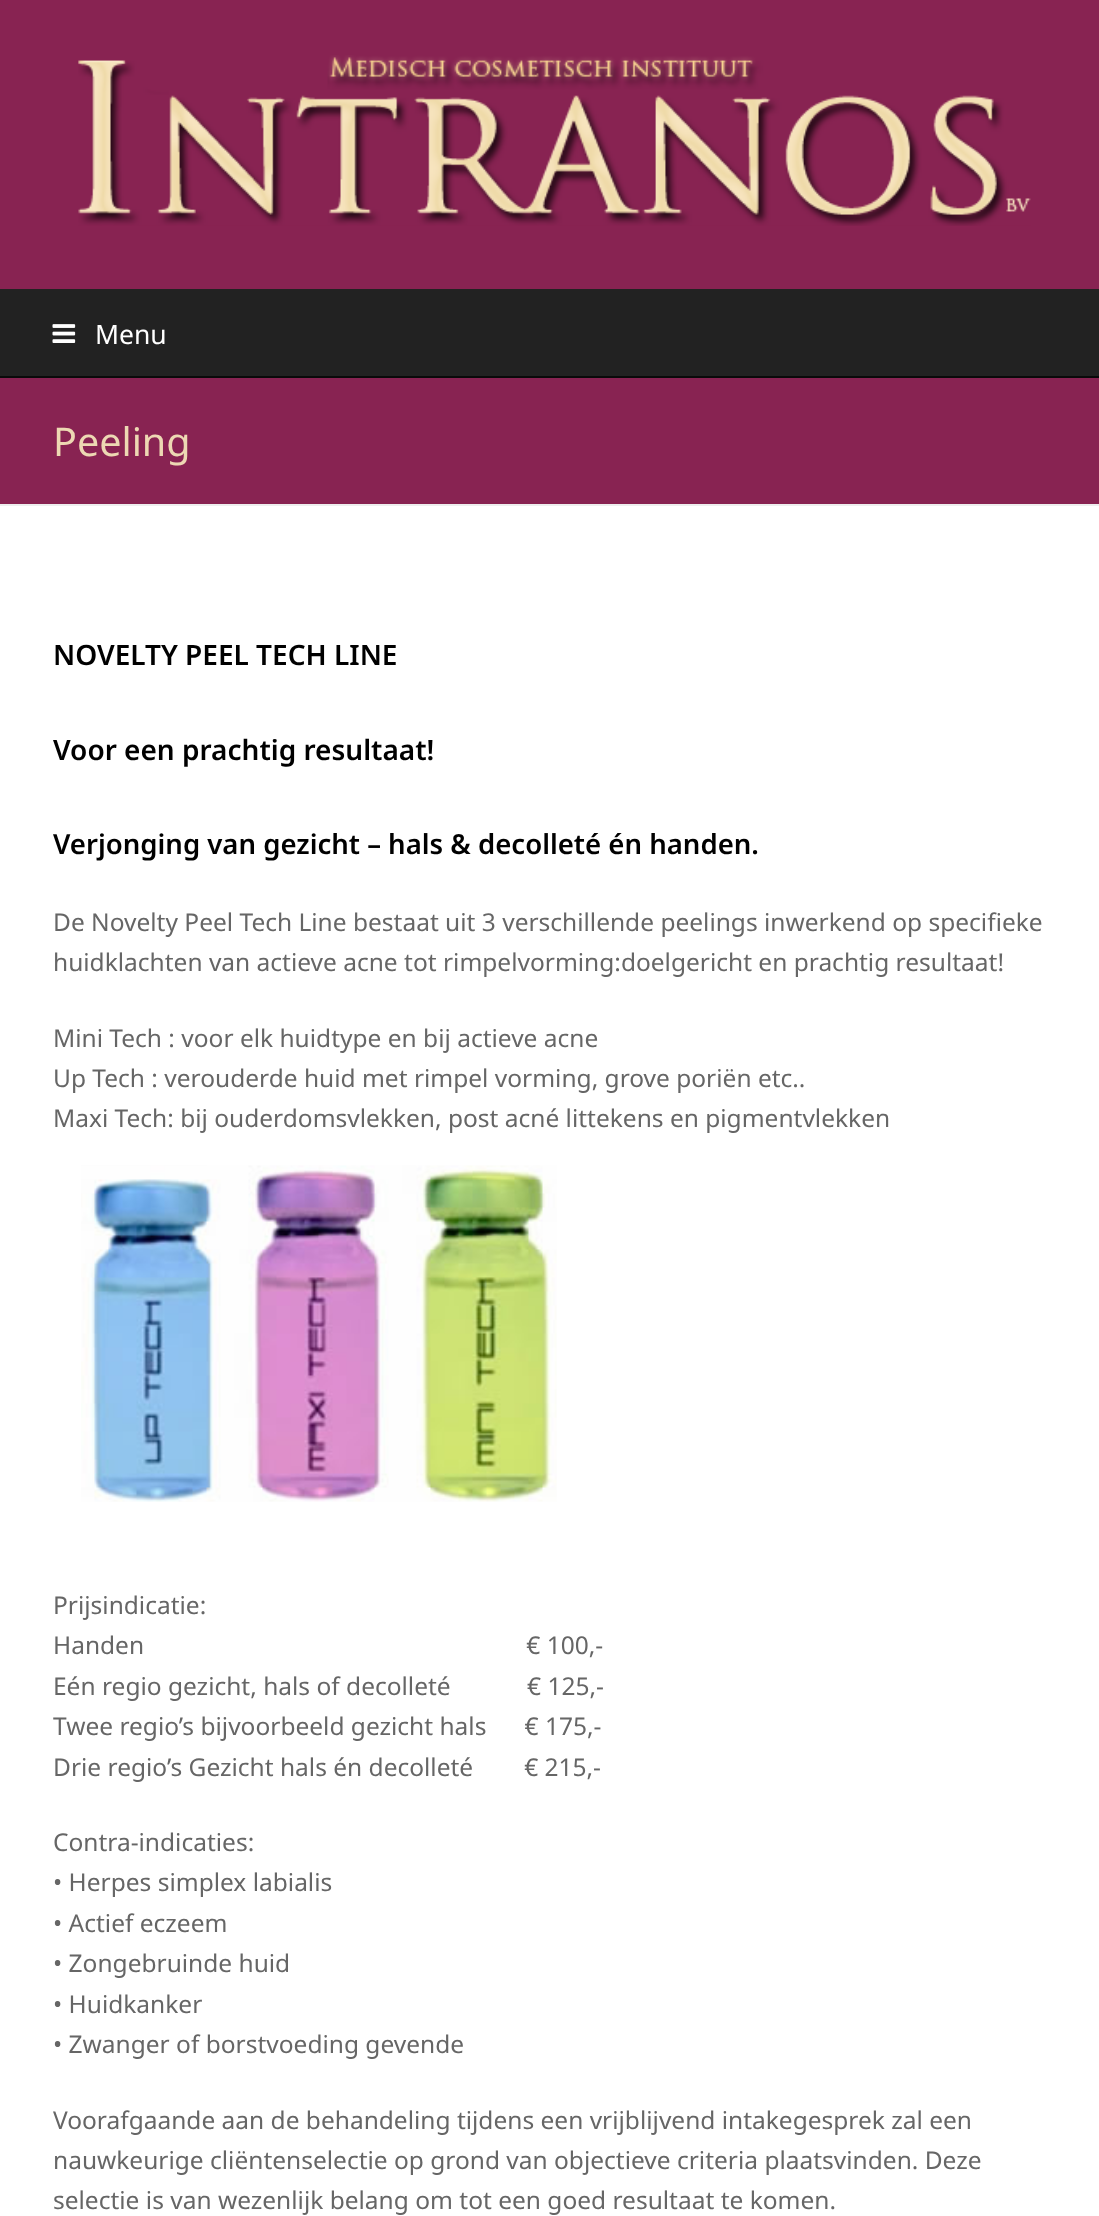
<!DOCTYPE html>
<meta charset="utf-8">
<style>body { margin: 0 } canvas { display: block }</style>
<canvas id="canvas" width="1099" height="2216"></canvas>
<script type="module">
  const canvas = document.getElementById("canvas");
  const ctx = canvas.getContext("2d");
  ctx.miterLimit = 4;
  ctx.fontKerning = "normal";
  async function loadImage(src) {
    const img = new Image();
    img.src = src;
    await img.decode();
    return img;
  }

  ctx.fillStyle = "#ffffff";
  ctx.fillRect(0, 0, 1099, 2216);
  ctx.fillStyle = "#882352";
  ctx.fillRect(0, 0, 1099, 289);
  ctx.drawImage(await loadImage("img1.png"), 78, 55, 953, 171);
  ctx.fillStyle = "#222222";
  ctx.fillRect(0, 289, 1099, 87);
  ctx.drawImage(await loadImage("img2.png"), 52, 324, 24, 19);
  ctx.font = "26.5px Noto Sans";
  ctx.fillStyle = "#ffffff";
  ctx.fillText("Menu", 95, 344);
  ctx.fillStyle = "#882352";
  ctx.fillRect(0, 378, 1099, 126);
  ctx.fillStyle = "#0a0a0a";
  ctx.fillRect(0, 376, 1099, 2);
  ctx.fillStyle = "#eeeeee";
  ctx.fillRect(0, 504, 1099, 2);
  ctx.font = "39.5px Noto Sans";
  ctx.fillStyle = "#edd8b3";
  ctx.fillText("Peeling", 53, 456);
  ctx.font = "600 28px Noto Sans";
  ctx.fillStyle = "#000000";
  ctx.fillText("NOVELTY PEEL TECH LINE", 53, 665);
  ctx.fillText("Voor een prachtig resultaat!", 53, 760);
  ctx.font = "600 27.55px Noto Sans";
  ctx.fillText("Verjonging van gezicht – hals & decolleté én handen.", 53, 854);
  ctx.font = "24.5px Noto Sans";
  ctx.fillStyle = "#666666";
  ctx.fillText("De Novelty Peel Tech Line bestaat uit 3 verschillende peelings inwerkend op specifieke", 53, 931);
  ctx.fillText("huidklachten van actieve acne tot rimpelvorming:doelgericht en prachtig resultaat!", 53, 971);
  ctx.fillText("Mini Tech : voor elk huidtype en bij actieve acne", 53, 1047);
  ctx.fillText("Up Tech : verouderde huid met rimpel vorming, grove poriën etc..", 53, 1087);
  ctx.fillText("Maxi Tech: bij ouderdomsvlekken, post acné littekens en pigmentvlekken", 53, 1127);
  ctx.drawImage(await loadImage("img3.png"), 81, 1165, 476, 337);
  ctx.fillText("Prijsindicatie:", 53, 1614);
  ctx.fillText("Handen                                                            € 100,-", 53, 1654);
  ctx.fillText("Eén regio gezicht, hals of decolleté            € 125,-", 53, 1695);
  ctx.fillText("Twee regio’s bijvoorbeeld gezicht hals      € 175,-", 53, 1735);
  ctx.fillText("Drie regio’s Gezicht hals én decolleté        € 215,-", 53, 1776);
  ctx.fillText("Contra-indicaties:", 53, 1851);
  ctx.fillText("• Herpes simplex labialis", 53, 1891);
  ctx.fillText("• Actief eczeem", 53, 1932);
  ctx.fillText("• Zongebruinde huid", 53, 1972);
  ctx.fillText("• Huidkanker", 53, 2013);
  ctx.fillText("• Zwanger of borstvoeding gevende", 53, 2053);
  ctx.fillText("Voorafgaande aan de behandeling tijdens een vrijblijvend intakegesprek zal een", 53, 2129);
  ctx.fillText("nauwkeurige cliëntenselectie op grond van objectieve criteria plaatsvinden. Deze", 53, 2169);
  ctx.fillText("selectie is van wezenlijk belang om tot een goed resultaat te komen.", 53, 2209);
</script>
